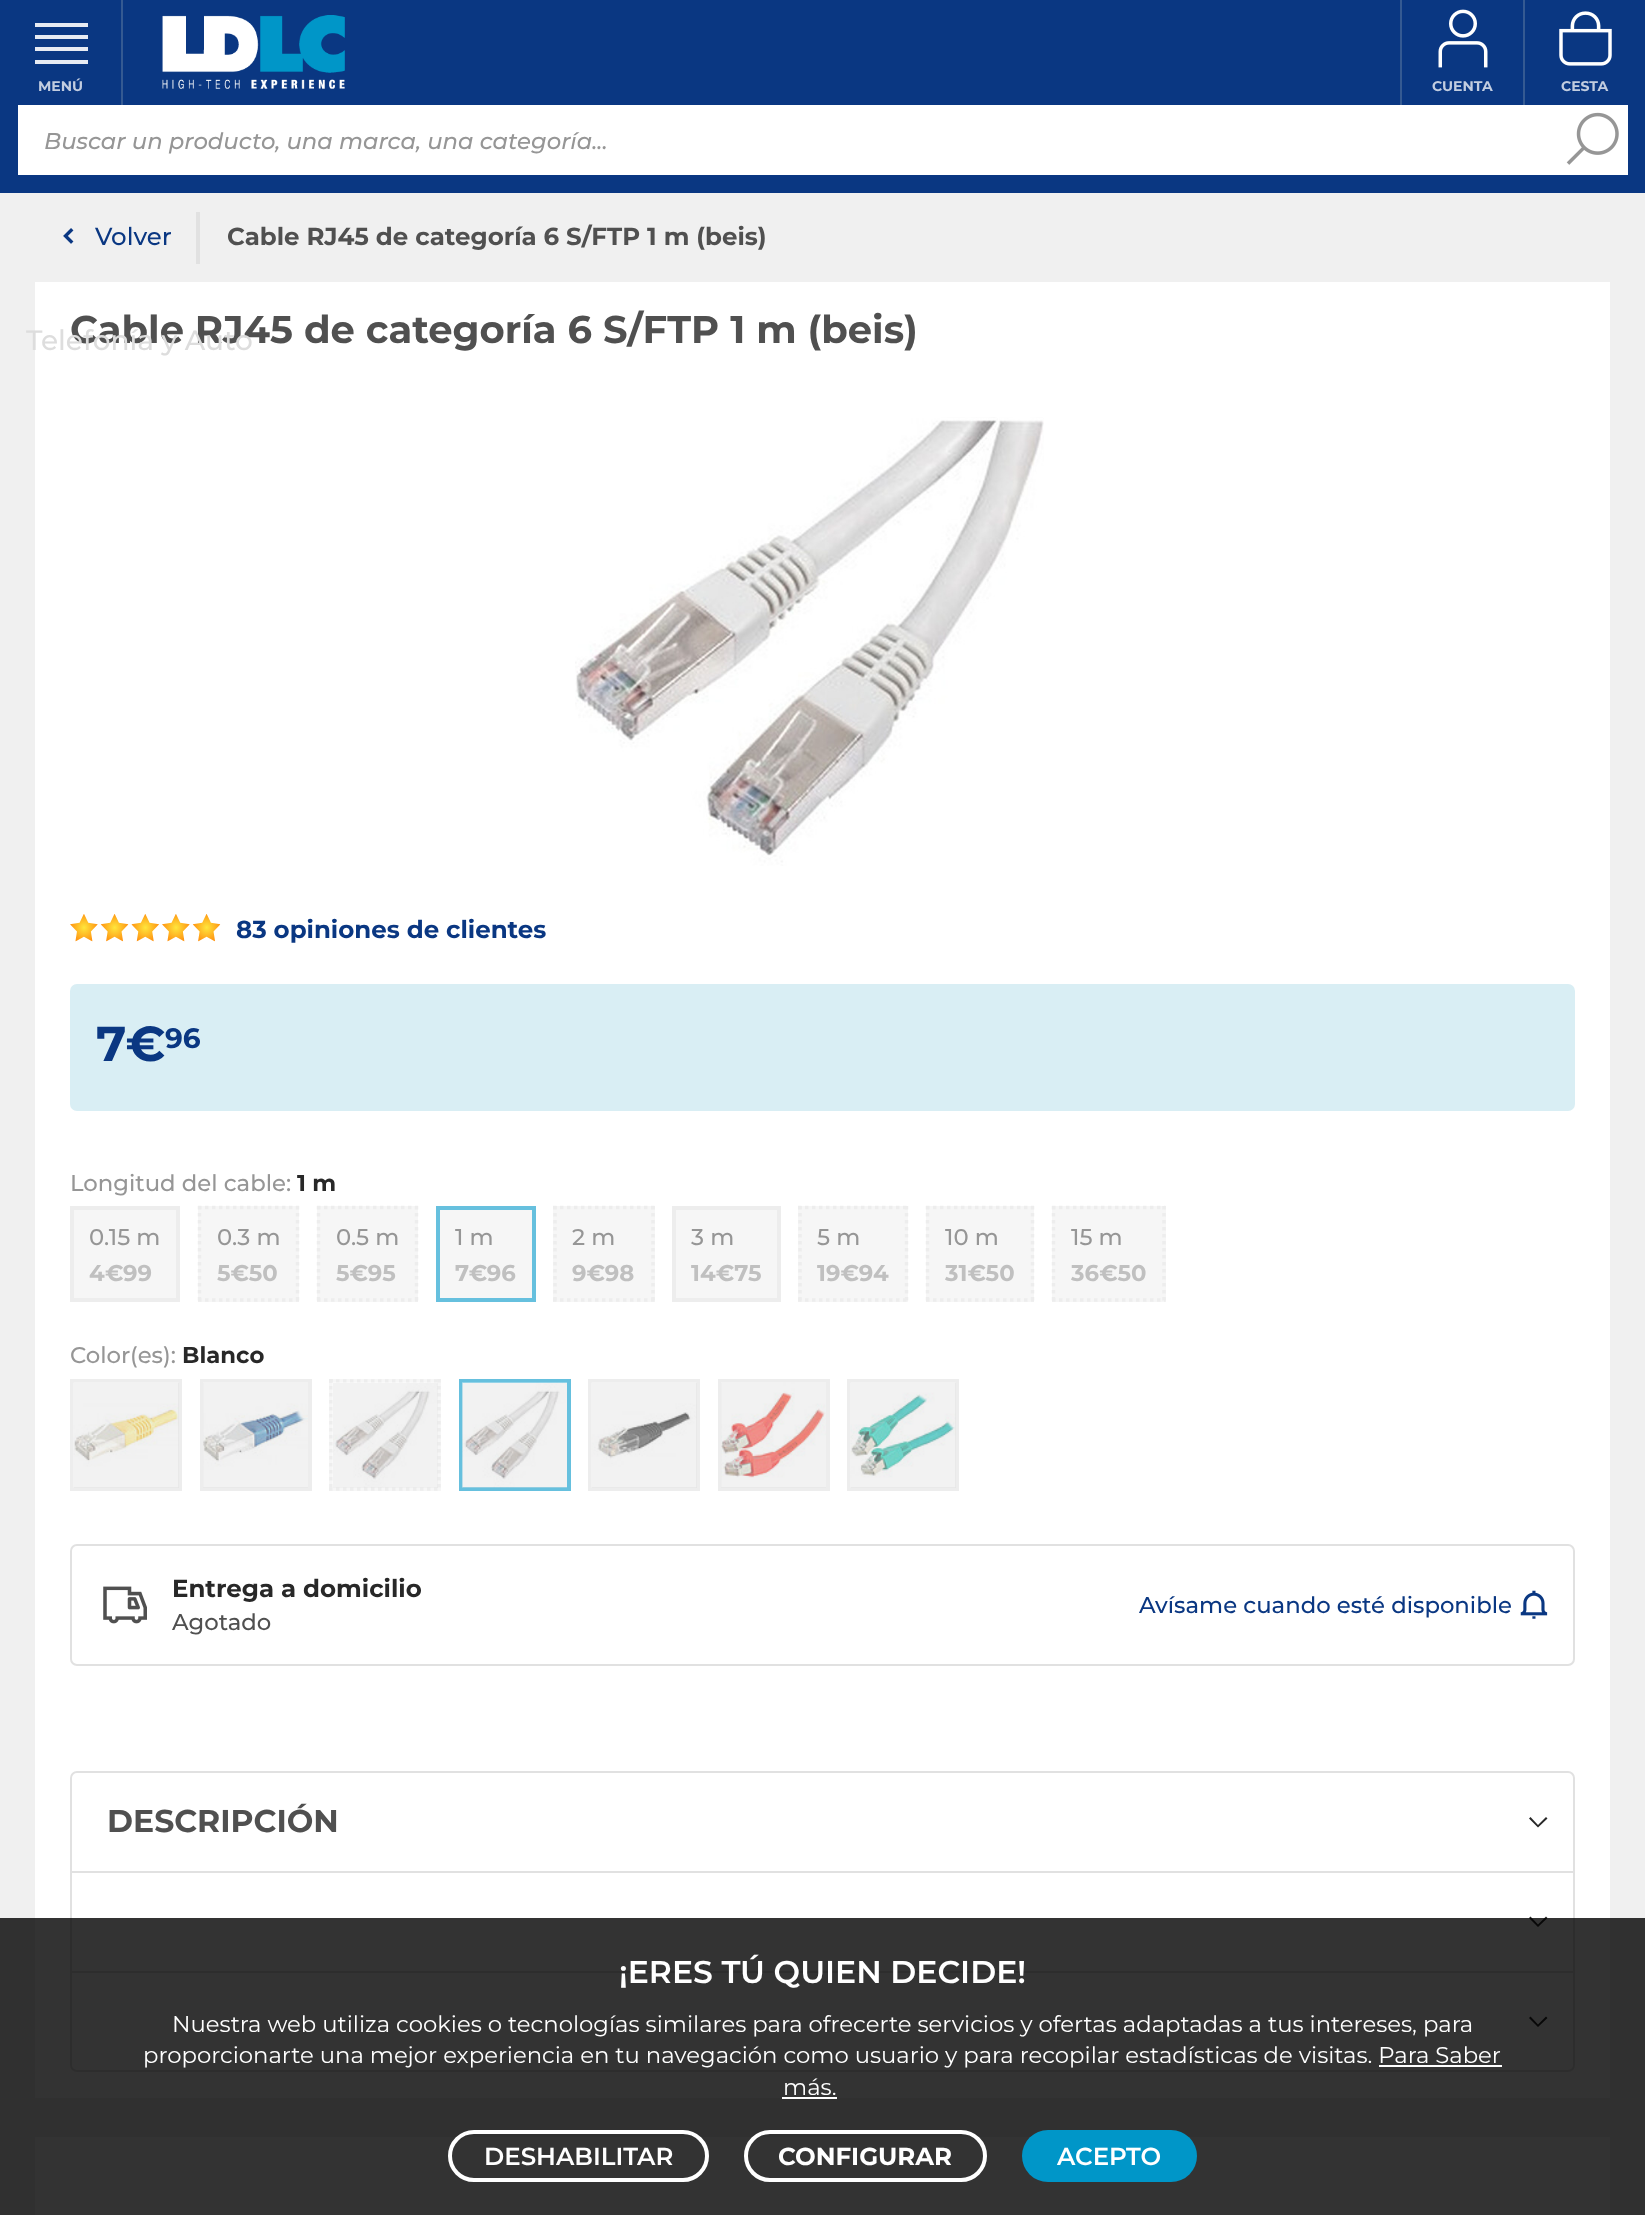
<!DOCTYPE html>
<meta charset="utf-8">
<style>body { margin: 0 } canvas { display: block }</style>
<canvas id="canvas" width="1645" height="2215"></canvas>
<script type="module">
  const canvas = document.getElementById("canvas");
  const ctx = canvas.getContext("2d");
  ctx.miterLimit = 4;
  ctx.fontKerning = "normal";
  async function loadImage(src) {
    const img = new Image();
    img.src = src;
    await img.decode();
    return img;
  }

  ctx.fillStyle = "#f0f0f0";
  ctx.fillRect(0, 0, 1645, 2215);
  ctx.fillStyle = "#0a3782";
  ctx.fillRect(0, 0, 1645, 105);
  ctx.fillStyle = "#355a92";
  ctx.fillRect(121, 0, 2, 105);
  ctx.fillStyle = "#e7ebf3";
  ctx.fillRect(35, 23, 53, 4);
  ctx.fillRect(35, 60, 53, 4);
  ctx.fillRect(35, 35, 53, 4);
  ctx.fillRect(35, 47, 53, 4);
  ctx.font = "bold 14px Montserrat";
  ctx.fillStyle = "#c2cde0";
  ctx.fillText("MENÚ", 38, 91);
  ctx.drawImage(await loadImage("img1.png"), 162, 15, 183, 74);
  ctx.fillStyle = "#355a92";
  ctx.fillRect(1400, 0, 2, 105);
  ctx.drawImage(await loadImage("img2.png"), 1438, 9, 50, 59);
  ctx.fillStyle = "#c2cde0";
  ctx.fillText("CUENTA", 1432, 91);
  ctx.fillStyle = "#355a92";
  ctx.fillRect(1523, 0, 2, 105);
  ctx.drawImage(await loadImage("img3.png"), 1559, 11, 53, 55);
  ctx.fillStyle = "#c2cde0";
  ctx.fillText("CESTA", 1561, 91);
  ctx.fillStyle = "#0a3782";
  ctx.fillRect(1628, 105, 17, 70);
  ctx.fillRect(18, 175, 1627, 18);
  ctx.fillRect(0, 105, 18, 88);
  ctx.fillStyle = "#ffffff";
  ctx.fillRect(18, 105, 1610, 70);
  ctx.font = "italic 500 22.75px Montserrat";
  ctx.fillStyle = "#969696";
  ctx.fillText("Buscar un producto, una marca, una categoría...", 44, 149);
  ctx.drawImage(await loadImage("img4.png"), 1566, 112, 53, 53);
  ctx.fillStyle = "#ffffff";
  ctx.fillRect(35, 282, 1575, 1816);
  ctx.font = "bold 38.5px Montserrat";
  ctx.fillStyle = "#505050";
  ctx.fillText("Cable RJ45 de categoría 6 S/FTP 1 m (beis)", 70, 343);
  ctx.font = "500 28px Montserrat";
  ctx.fillStyle = "#dddddd";
  ctx.fillText("Telefonía y Auto", 26, 350);
  ctx.drawImage(await loadImage("img5.png"), 63, 228, 11, 16);
  ctx.font = "500 24.5px Montserrat";
  ctx.fillStyle = "#0a3782";
  ctx.fillText("Volver", 95, 245);
  ctx.fillStyle = "#e1e1e1";
  ctx.fillRect(196, 212, 4, 52);
  ctx.font = "bold 24.5px Montserrat";
  ctx.fillStyle = "#505050";
  ctx.fillText("Cable RJ45 de categoría 6 S/FTP 1 m (beis)", 227, 245);
  ctx.drawImage(await loadImage("img6.png"), 575, 417, 469, 449);
  ctx.drawImage(await loadImage("img7.png"), 70, 914, 151, 28);
  ctx.fillStyle = "#0a3782";
  ctx.fillText("83 opiniones de clientes", 236, 938);
  ctx.fillStyle = "#d9eef4";
  ctx.beginPath();
  ctx.roundRect(70, 984, 1505, 127, 7);
  ctx.fill();
  ctx.font = "bold 49px Montserrat";
  ctx.fillStyle = "#0a3782";
  ctx.fillText("7€", 96, 1061);
  ctx.font = "bold 28px Montserrat";
  ctx.fillText("96", 165, 1048);
  ctx.font = "500 22.75px Montserrat";
  ctx.fillStyle = "#969696";
  ctx.fillText("Longitud del cable:", 70, 1191);
  ctx.font = "bold 22.75px Montserrat";
  ctx.fillStyle = "#282828";
  ctx.fillText("1 m", 297, 1191);
  ctx.fillStyle = "#f6f6f6";
  ctx.beginPath();
  ctx.rect(72, 1208, 106, 92);
  ctx.fill();
  ctx.strokeStyle = "#ededed";
  ctx.lineWidth = 4;
  ctx.stroke();
  ctx.font = "500 22.75px Montserrat";
  ctx.fillStyle = "#969696";
  ctx.fillText("0.15 m", 89, 1245);
  ctx.font = "bold 22.75px Montserrat";
  ctx.fillStyle = "#c0c0c0";
  ctx.fillText("4€99", 89, 1281);
  ctx.fillStyle = "#f6f6f6";
  ctx.fillRect(198, 1206, 101, 96);
  ctx.beginPath();
  ctx.moveTo(198, 1207.5);
  ctx.lineTo(299, 1207.5);
  ctx.lineWidth = 3.5;
  ctx.setLineDash([3.5, 3.5]);
  ctx.stroke();
  ctx.beginPath();
  ctx.moveTo(297.5, 1206);
  ctx.lineTo(297.5, 1302);
  ctx.stroke();
  ctx.beginPath();
  ctx.moveTo(198, 1300);
  ctx.lineTo(299, 1300);
  ctx.stroke();
  ctx.beginPath();
  ctx.moveTo(199.5, 1206);
  ctx.lineTo(199.5, 1302);
  ctx.stroke();
  ctx.font = "500 22.75px Montserrat";
  ctx.fillStyle = "#969696";
  ctx.fillText("0.3 m", 217, 1245);
  ctx.font = "bold 22.75px Montserrat";
  ctx.fillStyle = "#c0c0c0";
  ctx.fillText("5€50", 217, 1281);
  ctx.fillStyle = "#f6f6f6";
  ctx.fillRect(317, 1206, 101, 96);
  ctx.beginPath();
  ctx.moveTo(317, 1207.5);
  ctx.lineTo(418, 1207.5);
  ctx.stroke();
  ctx.beginPath();
  ctx.moveTo(416.5, 1206);
  ctx.lineTo(416.5, 1302);
  ctx.stroke();
  ctx.beginPath();
  ctx.moveTo(317, 1300);
  ctx.lineTo(418, 1300);
  ctx.stroke();
  ctx.beginPath();
  ctx.moveTo(318.5, 1206);
  ctx.lineTo(318.5, 1302);
  ctx.stroke();
  ctx.font = "500 22.75px Montserrat";
  ctx.fillStyle = "#969696";
  ctx.fillText("0.5 m", 336, 1245);
  ctx.font = "bold 22.75px Montserrat";
  ctx.fillStyle = "#c0c0c0";
  ctx.fillText("5€95", 336, 1281);
  ctx.fillStyle = "#f6f6f6";
  ctx.beginPath();
  ctx.rect(438, 1208, 96, 92);
  ctx.fill();
  ctx.strokeStyle = "#66c0de";
  ctx.lineWidth = 4;
  ctx.setLineDash([]);
  ctx.stroke();
  ctx.font = "500 22.75px Montserrat";
  ctx.fillStyle = "#969696";
  ctx.fillText("1 m", 455, 1245);
  ctx.font = "bold 22.75px Montserrat";
  ctx.fillStyle = "#c0c0c0";
  ctx.fillText("7€96", 455, 1281);
  ctx.fillStyle = "#f6f6f6";
  ctx.fillRect(553, 1206, 102, 96);
  ctx.beginPath();
  ctx.moveTo(553, 1207.5);
  ctx.lineTo(654.5, 1207.5);
  ctx.strokeStyle = "#ededed";
  ctx.lineWidth = 3.5;
  ctx.setLineDash([3.5, 3.5]);
  ctx.stroke();
  ctx.beginPath();
  ctx.moveTo(653, 1206);
  ctx.lineTo(653, 1302);
  ctx.stroke();
  ctx.beginPath();
  ctx.moveTo(553, 1300);
  ctx.lineTo(654.5, 1300);
  ctx.stroke();
  ctx.beginPath();
  ctx.moveTo(555, 1206);
  ctx.lineTo(555, 1302);
  ctx.stroke();
  ctx.font = "500 22.75px Montserrat";
  ctx.fillStyle = "#969696";
  ctx.fillText("2 m", 572, 1245);
  ctx.font = "bold 22.75px Montserrat";
  ctx.fillStyle = "#c0c0c0";
  ctx.fillText("9€98", 572, 1281);
  ctx.fillStyle = "#f6f6f6";
  ctx.beginPath();
  ctx.rect(674, 1208, 105, 92);
  ctx.fill();
  ctx.lineWidth = 4;
  ctx.setLineDash([]);
  ctx.stroke();
  ctx.font = "500 22.75px Montserrat";
  ctx.fillStyle = "#969696";
  ctx.fillText("3 m", 691, 1245);
  ctx.font = "bold 22.75px Montserrat";
  ctx.fillStyle = "#c0c0c0";
  ctx.fillText("14€75", 691, 1281);
  ctx.fillStyle = "#f6f6f6";
  ctx.fillRect(798, 1206, 110, 96);
  ctx.beginPath();
  ctx.moveTo(798, 1207.5);
  ctx.lineTo(908, 1207.5);
  ctx.lineWidth = 3.5;
  ctx.setLineDash([3.5, 3.5]);
  ctx.stroke();
  ctx.beginPath();
  ctx.moveTo(906.5, 1206);
  ctx.lineTo(906.5, 1302);
  ctx.stroke();
  ctx.beginPath();
  ctx.moveTo(798, 1300);
  ctx.lineTo(908, 1300);
  ctx.stroke();
  ctx.beginPath();
  ctx.moveTo(800, 1206);
  ctx.lineTo(800, 1302);
  ctx.stroke();
  ctx.font = "500 22.75px Montserrat";
  ctx.fillStyle = "#969696";
  ctx.fillText("5 m", 817, 1245);
  ctx.font = "bold 22.75px Montserrat";
  ctx.fillStyle = "#c0c0c0";
  ctx.fillText("19€94", 817, 1281);
  ctx.fillStyle = "#f6f6f6";
  ctx.fillRect(926, 1206, 108, 96);
  ctx.beginPath();
  ctx.moveTo(926, 1207.5);
  ctx.lineTo(1034, 1207.5);
  ctx.stroke();
  ctx.beginPath();
  ctx.moveTo(1032.5, 1206);
  ctx.lineTo(1032.5, 1302);
  ctx.stroke();
  ctx.beginPath();
  ctx.moveTo(926, 1300);
  ctx.lineTo(1034, 1300);
  ctx.stroke();
  ctx.beginPath();
  ctx.moveTo(927.5, 1206);
  ctx.lineTo(927.5, 1302);
  ctx.stroke();
  ctx.font = "500 22.75px Montserrat";
  ctx.fillStyle = "#969696";
  ctx.fillText("10 m", 945, 1245);
  ctx.font = "bold 22.75px Montserrat";
  ctx.fillStyle = "#c0c0c0";
  ctx.fillText("31€50", 945, 1281);
  ctx.fillStyle = "#f6f6f6";
  ctx.fillRect(1052, 1206, 114, 96);
  ctx.beginPath();
  ctx.moveTo(1052, 1207.5);
  ctx.lineTo(1165.5, 1207.5);
  ctx.stroke();
  ctx.beginPath();
  ctx.moveTo(1164, 1206);
  ctx.lineTo(1164, 1302);
  ctx.stroke();
  ctx.beginPath();
  ctx.moveTo(1052, 1300);
  ctx.lineTo(1165.5, 1300);
  ctx.stroke();
  ctx.beginPath();
  ctx.moveTo(1053.5, 1206);
  ctx.lineTo(1053.5, 1302);
  ctx.stroke();
  ctx.font = "500 22.75px Montserrat";
  ctx.fillStyle = "#969696";
  ctx.fillText("15 m", 1071, 1245);
  ctx.font = "bold 22.75px Montserrat";
  ctx.fillStyle = "#c0c0c0";
  ctx.fillText("36€50", 1071, 1281);
  ctx.font = "500 22.75px Montserrat";
  ctx.fillStyle = "#969696";
  ctx.fillText("Color(es):", 70, 1363);
  ctx.font = "bold 22.75px Montserrat";
  ctx.fillStyle = "#282828";
  ctx.fillText("Blanco", 182, 1363);
  ctx.fillStyle = "#f6f6f6";
  ctx.beginPath();
  ctx.rect(72, 1381, 108, 108);
  ctx.fill();
  ctx.lineWidth = 4;
  ctx.setLineDash([]);
  ctx.stroke();
  ctx.drawImage(await loadImage("img8.png"), 73, 1382, 106, 106);
  ctx.fillStyle = "rgba(102, 102, 102, 0.06)";
  ctx.fillRect(74, 1383, 105, 105);
  ctx.fillStyle = "#f6f6f6";
  ctx.beginPath();
  ctx.rect(202, 1381, 108, 108);
  ctx.fill();
  ctx.stroke();
  ctx.drawImage(await loadImage("img9.png"), 203, 1382, 105, 106);
  ctx.fillStyle = "rgba(102, 102, 102, 0.06)";
  ctx.fillRect(203, 1383, 105, 105);
  ctx.fillStyle = "#f6f6f6";
  ctx.fillRect(329, 1379, 112, 112);
  ctx.beginPath();
  ctx.moveTo(329, 1381);
  ctx.lineTo(441, 1381);
  ctx.lineWidth = 3.5;
  ctx.setLineDash([3.5, 3.5]);
  ctx.stroke();
  ctx.beginPath();
  ctx.moveTo(439, 1379);
  ctx.lineTo(439, 1491);
  ctx.stroke();
  ctx.beginPath();
  ctx.moveTo(329, 1489);
  ctx.lineTo(441, 1489);
  ctx.stroke();
  ctx.beginPath();
  ctx.moveTo(331, 1379);
  ctx.lineTo(331, 1491);
  ctx.stroke();
  ctx.drawImage(await loadImage("img10.png"), 332, 1382, 106, 106);
  ctx.fillStyle = "rgba(102, 102, 102, 0.06)";
  ctx.fillRect(333, 1383, 105, 105);
  ctx.fillStyle = "#f6f6f6";
  ctx.beginPath();
  ctx.rect(461, 1381, 108, 108);
  ctx.fill();
  ctx.strokeStyle = "#66c0de";
  ctx.lineWidth = 4;
  ctx.setLineDash([]);
  ctx.stroke();
  ctx.drawImage(await loadImage("img11.png"), 462, 1382, 105, 106);
  ctx.fillStyle = "rgba(102, 102, 102, 0.06)";
  ctx.fillRect(462, 1383, 105, 105);
  ctx.fillStyle = "#f6f6f6";
  ctx.beginPath();
  ctx.rect(590, 1381, 108, 108);
  ctx.fill();
  ctx.strokeStyle = "#ededed";
  ctx.stroke();
  ctx.drawImage(await loadImage("img12.png"), 591, 1382, 106, 106);
  ctx.fillStyle = "rgba(102, 102, 102, 0.06)";
  ctx.fillRect(592, 1383, 105, 105);
  ctx.fillStyle = "#f6f6f6";
  ctx.beginPath();
  ctx.rect(720, 1381, 108, 108);
  ctx.fill();
  ctx.stroke();
  ctx.drawImage(await loadImage("img13.png"), 721, 1382, 105, 106);
  ctx.fillStyle = "rgba(102, 102, 102, 0.06)";
  ctx.fillRect(721, 1383, 105, 105);
  ctx.fillStyle = "#f6f6f6";
  ctx.beginPath();
  ctx.rect(849, 1381, 108, 108);
  ctx.fill();
  ctx.stroke();
  ctx.drawImage(await loadImage("img14.png"), 850, 1382, 106, 106);
  ctx.fillStyle = "rgba(102, 102, 102, 0.06)";
  ctx.fillRect(851, 1383, 105, 105);
  ctx.beginPath();
  ctx.roundRect(71, 1545, 1503, 120, 6);
  ctx.strokeStyle = "#e1e1e1";
  ctx.lineWidth = 2;
  ctx.stroke();
  ctx.drawImage(await loadImage("img15.png"), 103, 1586, 44, 38);
  ctx.font = "bold 24.5px Montserrat";
  ctx.fillStyle = "#282828";
  ctx.fillText("Entrega a domicilio", 172, 1597);
  ctx.font = "500 22.75px Montserrat";
  ctx.fillStyle = "#505050";
  ctx.fillText("Agotado", 172, 1630);
  ctx.fillStyle = "#0a3782";
  ctx.fillText("Avísame cuando esté disponible", 1139, 1613);
  ctx.drawImage(await loadImage("img16.png"), 1520, 1590, 28, 29);
  ctx.beginPath();
  ctx.roundRect(71, 1772, 1503, 299, 6);
  ctx.stroke();
  ctx.fillStyle = "#e1e1e1";
  ctx.fillRect(72, 1871, 1501, 2);
  ctx.font = "bold 31.5px Montserrat";
  ctx.fillStyle = "#505050";
  ctx.fillText("DESCRIPCIÓN", 107, 1832);
  ctx.fillStyle = "#282828";
  ctx.beginPath();
  ctx.moveTo(1538, 1827.5);
  ctx.lineTo(1529, 1818.5);
  ctx.lineTo(1530.5, 1817);
  ctx.lineTo(1538, 1825);
  ctx.lineTo(1546, 1817);
  ctx.lineTo(1547.5, 1818.5);
  ctx.closePath();
  ctx.fill();
  ctx.fillStyle = "#e1e1e1";
  ctx.fillRect(72, 1971, 1501, 2);
  ctx.fillStyle = "#282828";
  ctx.beginPath();
  ctx.moveTo(1538, 1927);
  ctx.lineTo(1529, 1918);
  ctx.lineTo(1530.5, 1916.5);
  ctx.lineTo(1538, 1924.5);
  ctx.lineTo(1546, 1916.5);
  ctx.lineTo(1547.5, 1918);
  ctx.closePath();
  ctx.fill();
  ctx.beginPath();
  ctx.moveTo(1538, 2027);
  ctx.lineTo(1529, 2018);
  ctx.lineTo(1530.5, 2016.5);
  ctx.lineTo(1538, 2024.5);
  ctx.lineTo(1546, 2016.5);
  ctx.lineTo(1547.5, 2018);
  ctx.closePath();
  ctx.fill();
  ctx.fillStyle = "#ffffff";
  ctx.fillRect(35, 2137, 1575, 78);
  ctx.fillStyle = "rgba(0, 0, 0, 0.8)";
  ctx.fillRect(0, 1918, 1645, 297);
  ctx.font = "600 31.5px Montserrat";
  ctx.fillStyle = "#ffffff";
  ctx.fillText("¡ERES TÚ QUIEN DECIDE!", 619, 1983);
  ctx.font = "22.75px Montserrat";
  ctx.fillText("Nuestra web utiliza cookies o tecnologías similares para ofrecerte servicios y ofertas adaptadas a tus intereses, para", 172, 2032);
  ctx.fillText("proporcionarte una mejor experiencia en tu navegación como usuario y para recopilar estadísticas de visitas. Para Saber", 143, 2063);
  ctx.fillText("más.", 783, 2095);
  ctx.fillRect(1379, 2065, 123, 2);
  ctx.fillRect(782, 2097, 55, 2);
  ctx.beginPath();
  ctx.roundRect(450, 2132, 257, 48, 24);
  ctx.strokeStyle = "#ffffff";
  ctx.lineWidth = 4;
  ctx.stroke();
  ctx.font = "600 24.5px Montserrat";
  ctx.fillText("DESHABILITAR", 484, 2165);
  ctx.beginPath();
  ctx.roundRect(746, 2132, 239, 48, 24);
  ctx.stroke();
  ctx.font = "bold 24.5px Montserrat";
  ctx.fillText("CONFIGURAR", 778, 2165);
  ctx.fillStyle = "#0096c8";
  ctx.beginPath();
  ctx.roundRect(1022, 2130, 175, 52, 26);
  ctx.fill();
  ctx.font = "600 24.5px Montserrat";
  ctx.fillStyle = "#ffffff";
  ctx.fillText("ACEPTO", 1057, 2165);
</script>
